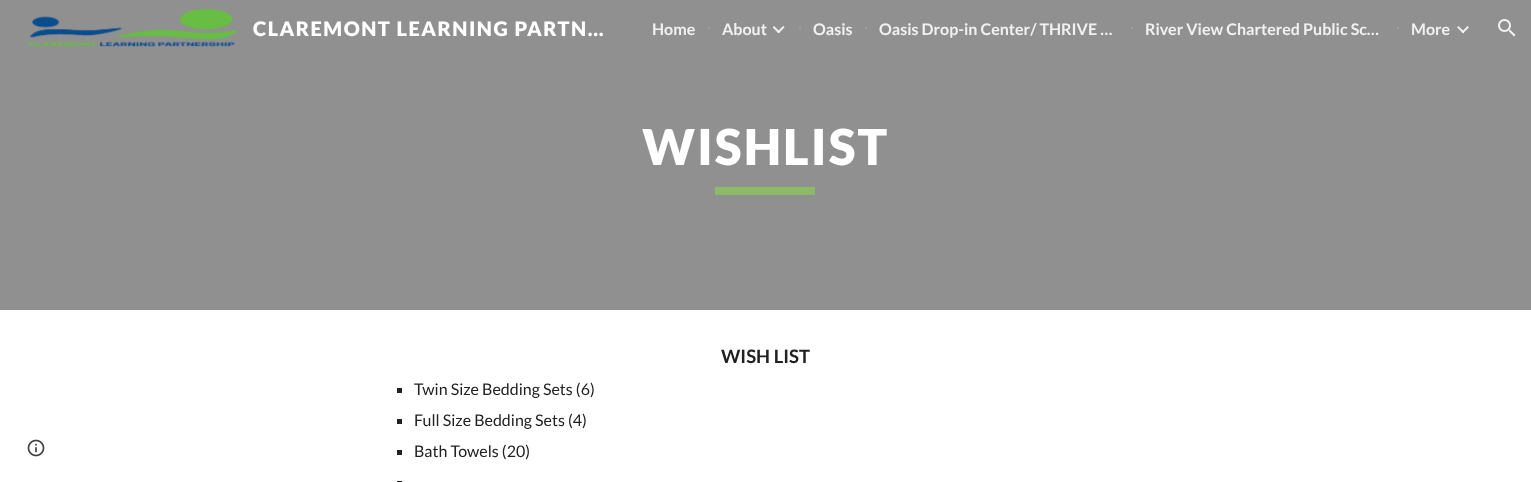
<!DOCTYPE html>
<meta charset="utf-8">
<style>body { margin: 0 } canvas { display: block }</style>
<canvas id="canvas" width="1531" height="482"></canvas>
<script type="module">
  const canvas = document.getElementById("canvas");
  const ctx = canvas.getContext("2d");
  ctx.miterLimit = 4;
  ctx.fontKerning = "normal";
  async function loadImage(src) {
    const img = new Image();
    img.src = src;
    await img.decode();
    return img;
  }

  ctx.fillStyle = "#ffffff";
  ctx.fillRect(0, 0, 1531, 482);
  ctx.fillStyle = "#909090";
  ctx.fillRect(0, 0, 1531, 310);
  ctx.drawImage(await loadImage("img1.png"), 28, 8, 210, 39);
  ctx.letterSpacing = "1.5px";
  ctx.font = "900 20px Lato";
  ctx.fillStyle = "#ffffff";
  ctx.fillText("CLAREMONT LEARNING PARTN…", 253, 36);
  ctx.letterSpacing = "0px";
  ctx.font = "bold 16px Lato";
  ctx.fillStyle = "#f1f1f1";
  ctx.fillText("Home", 652, 35);
  ctx.fillStyle = "#9e9e9e";
  ctx.fillRect(708, 27, 2, 2);
  ctx.fillStyle = "#f1f1f1";
  ctx.fillText("About", 722, 35);
  ctx.drawImage(await loadImage("img2.png"), 772, 26, 13, 8);
  ctx.fillStyle = "#9e9e9e";
  ctx.fillRect(799, 27, 2, 2);
  ctx.fillStyle = "#f1f1f1";
  ctx.fillText("Oasis", 813, 35);
  ctx.fillStyle = "#9e9e9e";
  ctx.fillRect(865, 27, 2, 2);
  ctx.fillStyle = "#f1f1f1";
  ctx.fillText("Oasis Drop-in Center/ THRIVE …", 879, 35);
  ctx.fillStyle = "#9e9e9e";
  ctx.fillRect(1131, 27, 2, 2);
  ctx.fillStyle = "#f1f1f1";
  ctx.fillText("River View Chartered Public Sc…", 1145, 35);
  ctx.fillStyle = "#9e9e9e";
  ctx.fillRect(1397, 27, 2, 2);
  ctx.fillStyle = "#f1f1f1";
  ctx.fillText("More", 1411, 35);
  ctx.drawImage(await loadImage("img3.png"), 1457, 26, 12, 8);
  ctx.drawImage(await loadImage("img4.png"), 1498, 19, 18, 18);
  ctx.drawImage(await loadImage("img5.png"), 27, 439, 18, 18);
  ctx.letterSpacing = "2px";
  ctx.font = "900 49.5px Lato";
  ctx.fillStyle = "#ffffff";
  ctx.fillText("WISHLIST", 642, 165);
  ctx.fillStyle = "#8bbb67";
  ctx.fillRect(715, 187, 100, 8);
  ctx.letterSpacing = "0px";
  ctx.font = "bold 18.5px Lato";
  ctx.fillStyle = "#212121";
  ctx.fillText("WISH LIST", 721, 363);
  ctx.fillRect(397, 388, 5, 5);
  ctx.font = "16px Lato";
  ctx.fillText("Twin Size Bedding Sets (6)", 414, 395);
  ctx.fillRect(397, 419, 5, 5);
  ctx.fillText("Full Size Bedding Sets (4)", 414, 426);
  ctx.fillRect(397, 450, 5, 5);
  ctx.fillText("Bath Towels (20)", 414, 457);
  ctx.fillRect(397, 481, 5, 1);
</script>
